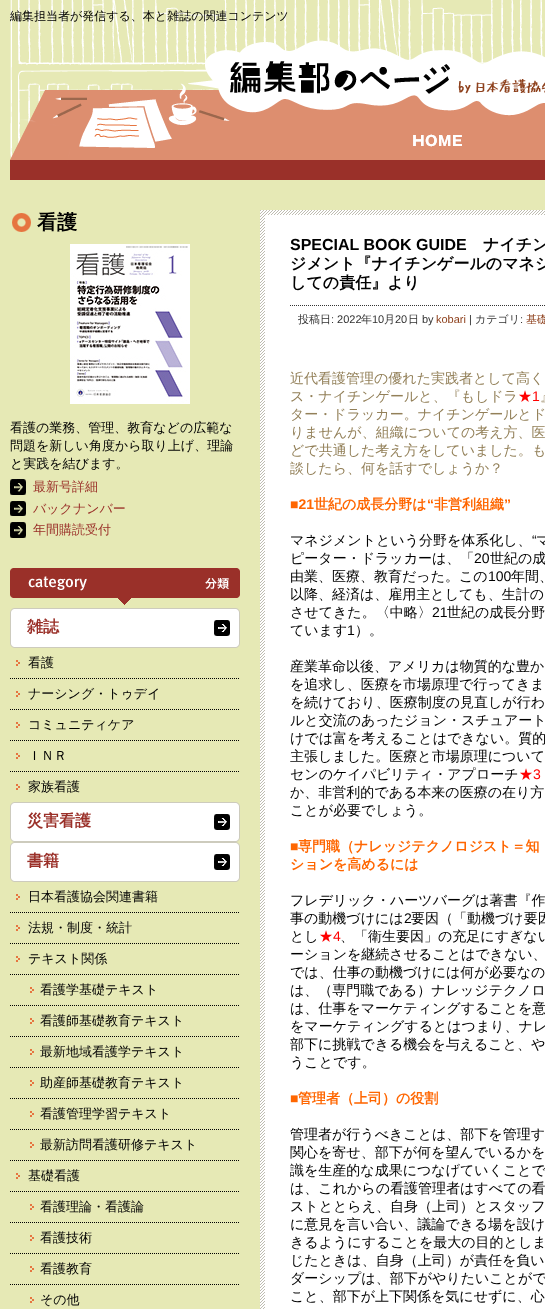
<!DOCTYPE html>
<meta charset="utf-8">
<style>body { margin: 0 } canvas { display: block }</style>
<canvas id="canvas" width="545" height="1309"></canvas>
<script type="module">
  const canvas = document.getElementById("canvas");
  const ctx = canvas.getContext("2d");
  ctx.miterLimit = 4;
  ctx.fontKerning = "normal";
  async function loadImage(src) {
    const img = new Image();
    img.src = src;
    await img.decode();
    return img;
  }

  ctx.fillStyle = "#e6e9b5";
  ctx.fillRect(0, 0, 545, 1309);
  ctx.drawImage(await loadImage("img1.png"), 10, 0, 535, 180);
  ctx.font = "500 12px WenQuanYi Zen Hei";
  ctx.fillStyle = "#000000";
  ctx.fillText("編集担当者が発信する、本と雑誌の関連コンテンツ", 10, 20);
  ctx.drawImage(await loadImage("img2.png"), 188, 40, 357, 76);
  ctx.drawImage(await loadImage("img3.png"), 413, 134, 49, 13);
  ctx.drawImage(await loadImage("img4.png"), 12, 213, 19, 19);
  ctx.font = "bold 20px WenQuanYi Zen Hei";
  ctx.fillText("看護", 37, 229);
  ctx.drawImage(await loadImage("img5.png"), 70, 244, 120, 160);
  ctx.font = "500 13px WenQuanYi Zen Hei";
  ctx.fillText("看護の業務、管理、教育などの広範な", 10, 432);
  ctx.fillText("問題を新しい角度から取り上げ、理論", 10, 450);
  ctx.fillText("と実践を結びます。", 10, 468);
  ctx.drawImage(await loadImage("img6.png"), 10, 479, 16, 16);
  ctx.fillStyle = "#9a3029";
  ctx.fillText("最新号詳細", 33, 491);
  ctx.drawImage(await loadImage("img7.png"), 10, 501, 16, 15);
  ctx.fillText("バックナンバー", 33, 513);
  ctx.drawImage(await loadImage("img6.png"), 10, 522, 16, 16);
  ctx.fillText("年間購読受付", 33, 534);
  ctx.drawImage(await loadImage("img8.png"), 10, 568, 230, 37);
  ctx.drawImage(await loadImage("img9.png"), 10, 608, 230, 40);
  ctx.font = "bold 16px WenQuanYi Zen Hei";
  ctx.fillText("雑誌", 27, 632);
  ctx.drawImage(await loadImage("img10.png"), 16, 660, 4, 6);
  ctx.font = "500 13px WenQuanYi Zen Hei";
  ctx.fillStyle = "#000000";
  ctx.fillText("看護", 28, 667);
  ctx.drawImage(await loadImage("img10.png"), 16, 691, 4, 6);
  ctx.beginPath();
  ctx.moveTo(10, 678.5);
  ctx.lineTo(240, 678.5);
  ctx.strokeStyle = "#000000";
  ctx.setLineDash([1, 1]);
  ctx.stroke();
  ctx.fillText("ナーシング・トゥデイ", 28, 698);
  ctx.drawImage(await loadImage("img10.png"), 16, 722, 4, 6);
  ctx.beginPath();
  ctx.moveTo(10, 709.5);
  ctx.lineTo(240, 709.5);
  ctx.stroke();
  ctx.fillText("コミュニティケア", 28, 729);
  ctx.drawImage(await loadImage("img10.png"), 16, 753, 4, 6);
  ctx.beginPath();
  ctx.moveTo(10, 740.5);
  ctx.lineTo(240, 740.5);
  ctx.stroke();
  ctx.fillText("ＩＮＲ", 28, 760);
  ctx.drawImage(await loadImage("img10.png"), 16, 784, 4, 6);
  ctx.beginPath();
  ctx.moveTo(10, 771.5);
  ctx.lineTo(240, 771.5);
  ctx.stroke();
  ctx.fillText("家族看護", 28, 791);
  ctx.drawImage(await loadImage("img9.png"), 10, 802, 230, 40);
  ctx.font = "bold 16px WenQuanYi Zen Hei";
  ctx.fillStyle = "#9a3029";
  ctx.fillText("災害看護", 27, 826);
  ctx.drawImage(await loadImage("img9.png"), 10, 842, 230, 40);
  ctx.fillText("書籍", 27, 866);
  ctx.drawImage(await loadImage("img10.png"), 16, 894, 4, 6);
  ctx.font = "500 13px WenQuanYi Zen Hei";
  ctx.fillStyle = "#000000";
  ctx.fillText("日本看護協会関連書籍", 28, 901);
  ctx.drawImage(await loadImage("img10.png"), 16, 925, 4, 6);
  ctx.beginPath();
  ctx.moveTo(10, 912.5);
  ctx.lineTo(240, 912.5);
  ctx.stroke();
  ctx.fillText("法規・制度・統計", 28, 932);
  ctx.drawImage(await loadImage("img10.png"), 16, 956, 4, 6);
  ctx.beginPath();
  ctx.moveTo(10, 943.5);
  ctx.lineTo(240, 943.5);
  ctx.stroke();
  ctx.fillText("テキスト関係", 28, 963);
  ctx.drawImage(await loadImage("img10.png"), 30, 987, 4, 6);
  ctx.beginPath();
  ctx.moveTo(10, 974.5);
  ctx.lineTo(240, 974.5);
  ctx.stroke();
  ctx.fillText("看護学基礎テキスト", 40, 994);
  ctx.drawImage(await loadImage("img10.png"), 30, 1018, 4, 6);
  ctx.beginPath();
  ctx.moveTo(10, 1005.5);
  ctx.lineTo(240, 1005.5);
  ctx.stroke();
  ctx.fillText("看護師基礎教育テキスト", 40, 1025);
  ctx.drawImage(await loadImage("img10.png"), 30, 1049, 4, 6);
  ctx.beginPath();
  ctx.moveTo(10, 1036.5);
  ctx.lineTo(240, 1036.5);
  ctx.stroke();
  ctx.fillText("最新地域看護学テキスト", 40, 1056);
  ctx.drawImage(await loadImage("img10.png"), 30, 1080, 4, 6);
  ctx.beginPath();
  ctx.moveTo(10, 1067.5);
  ctx.lineTo(240, 1067.5);
  ctx.stroke();
  ctx.fillText("助産師基礎教育テキスト", 40, 1087);
  ctx.drawImage(await loadImage("img10.png"), 30, 1111, 4, 6);
  ctx.beginPath();
  ctx.moveTo(10, 1098.5);
  ctx.lineTo(240, 1098.5);
  ctx.stroke();
  ctx.fillText("看護管理学習テキスト", 40, 1118);
  ctx.drawImage(await loadImage("img10.png"), 30, 1142, 4, 6);
  ctx.beginPath();
  ctx.moveTo(10, 1129.5);
  ctx.lineTo(240, 1129.5);
  ctx.stroke();
  ctx.fillText("最新訪問看護研修テキスト", 40, 1149);
  ctx.drawImage(await loadImage("img10.png"), 16, 1173, 4, 6);
  ctx.beginPath();
  ctx.moveTo(10, 1160.5);
  ctx.lineTo(240, 1160.5);
  ctx.stroke();
  ctx.fillText("基礎看護", 28, 1180);
  ctx.drawImage(await loadImage("img10.png"), 30, 1204, 4, 6);
  ctx.beginPath();
  ctx.moveTo(10, 1191.5);
  ctx.lineTo(240, 1191.5);
  ctx.stroke();
  ctx.fillText("看護理論・看護論", 40, 1211);
  ctx.drawImage(await loadImage("img10.png"), 30, 1235, 4, 6);
  ctx.beginPath();
  ctx.moveTo(10, 1222.5);
  ctx.lineTo(240, 1222.5);
  ctx.stroke();
  ctx.fillText("看護技術", 40, 1242);
  ctx.drawImage(await loadImage("img10.png"), 30, 1266, 4, 6);
  ctx.beginPath();
  ctx.moveTo(10, 1253.5);
  ctx.lineTo(240, 1253.5);
  ctx.stroke();
  ctx.fillText("看護教育", 40, 1273);
  ctx.drawImage(await loadImage("img10.png"), 30, 1297, 4, 6);
  ctx.beginPath();
  ctx.moveTo(10, 1284.5);
  ctx.lineTo(240, 1284.5);
  ctx.stroke();
  ctx.fillText("その他", 40, 1304);
  ctx.drawImage(await loadImage("img11.png"), 260, 210, 285, 1099);
  ctx.fillStyle = "#ffffff";
  ctx.fillRect(265, 215, 280, 1094);
  ctx.beginPath();
  ctx.moveTo(290, 305.5);
  ctx.lineTo(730, 305.5);
  ctx.strokeStyle = "#333333";
  ctx.stroke();
  ctx.font = "bold 16px Liberation Sans";
  ctx.fillStyle = "#000000";
  ctx.fillText("SPECIAL BOOK GUIDE", 290, 250);
  ctx.font = "bold 16px WenQuanYi Zen Hei";
  ctx.fillText("ナイチン", 483, 250);
  ctx.fillText("ジメント『ナイチンゲールのマネジ", 290, 269);
  ctx.fillText("しての責任』より", 290, 288);
  ctx.font = "500 11px WenQuanYi Zen Hei";
  ctx.fillStyle = "#333333";
  ctx.fillText("投稿日", 298, 323);
  ctx.font = "11px Liberation Sans";
  ctx.fillText(": 2022", 331, 323);
  ctx.font = "500 11px WenQuanYi Zen Hei";
  ctx.fillText("年", 361, 323);
  ctx.font = "11px Liberation Sans";
  ctx.fillText("10", 372, 323);
  ctx.font = "500 11px WenQuanYi Zen Hei";
  ctx.fillText("月", 384, 323);
  ctx.font = "11px Liberation Sans";
  ctx.fillText("20", 395, 323);
  ctx.font = "500 11px WenQuanYi Zen Hei";
  ctx.fillText("日", 408, 323);
  ctx.font = "11px Liberation Sans";
  ctx.fillText("by", 422, 323);
  ctx.fillStyle = "#8e411d";
  ctx.fillText("kobari", 436, 323);
  ctx.fillStyle = "#333333";
  ctx.fillText("|", 469, 323);
  ctx.font = "500 11px WenQuanYi Zen Hei";
  ctx.fillText("カテゴリ", 475, 323);
  ctx.font = "11px Liberation Sans";
  ctx.fillText(":", 520, 323);
  ctx.font = "500 11px WenQuanYi Zen Hei";
  ctx.fillStyle = "#8e411d";
  ctx.fillText("基礎", 526, 323);
  ctx.font = "500 14px WenQuanYi Zen Hei";
  ctx.fillStyle = "#938059";
  ctx.fillText("近代看護管理の優れた実践者として高く", 290, 383);
  ctx.fillText("ス・ナイチンゲールと、『もしドラ", 290, 401);
  ctx.fillStyle = "#ff0000";
  ctx.fillText("★", 518, 401);
  ctx.font = "14px Liberation Sans";
  ctx.fillText("1", 532, 401);
  ctx.font = "500 14px WenQuanYi Zen Hei";
  ctx.fillStyle = "#938059";
  ctx.fillText("』", 540, 401);
  ctx.fillText("ター・ドラッカー。ナイチンゲールとド", 290, 419);
  ctx.fillText("りませんが、組織についての考え方、医", 290, 437);
  ctx.fillText("どで共通した考え方をしていました。も", 290, 455);
  ctx.fillText("談したら、何を話すでしょうか？", 290, 473);
  ctx.font = "bold 14px Liberation Sans";
  ctx.fillStyle = "#ff6600";
  ctx.fillText("■21", 290, 509);
  ctx.font = "bold 14px WenQuanYi Zen Hei";
  ctx.fillText("世紀の成長分野は", 314, 509);
  ctx.font = "bold 14px Liberation Sans";
  ctx.fillText("“", 427, 509);
  ctx.font = "bold 14px WenQuanYi Zen Hei";
  ctx.fillText("非営利組織", 434, 509);
  ctx.font = "bold 14px Liberation Sans";
  ctx.fillText("”", 504, 509);
  ctx.font = "500 14px WenQuanYi Zen Hei";
  ctx.fillStyle = "#000000";
  ctx.fillText("マネジメントという分野を体系化し、", 290, 545);
  ctx.font = "14px Liberation Sans";
  ctx.fillText("“", 532, 545);
  ctx.font = "500 14px WenQuanYi Zen Hei";
  ctx.fillText("マ", 536, 545);
  ctx.fillText("ピーター・ドラッカーは、「", 290, 563);
  ctx.font = "14px Liberation Sans";
  ctx.fillText("20", 474, 563);
  ctx.font = "500 14px WenQuanYi Zen Hei";
  ctx.fillText("世紀の成", 490, 563);
  ctx.fillText("由業、医療、教育だった。この", 290, 581);
  ctx.font = "14px Liberation Sans";
  ctx.fillText("100", 488, 581);
  ctx.font = "500 14px WenQuanYi Zen Hei";
  ctx.fillText("年間、", 511, 581);
  ctx.fillText("以降、経済は、雇用主としても、生計の", 290, 599);
  ctx.fillText("させてきた。〈中略〉", 290, 617);
  ctx.font = "14px Liberation Sans";
  ctx.fillText("21", 432, 617);
  ctx.font = "500 14px WenQuanYi Zen Hei";
  ctx.fillText("世紀の成長分野", 447, 617);
  ctx.fillText("ています", 290, 635);
  ctx.font = "14px Liberation Sans";
  ctx.fillText("1", 347, 635);
  ctx.font = "500 14px WenQuanYi Zen Hei";
  ctx.fillText("）。", 355, 635);
  ctx.fillText("産業革命以後、アメリカは物質的な豊か", 290, 671);
  ctx.fillText("を追求し、医療を市場原理で行ってきま", 290, 689);
  ctx.fillText("を続けており、医療制度の見直しが行わ", 290, 707);
  ctx.fillText("ルと交流のあったジョン・スチュアート", 290, 725);
  ctx.fillText("けでは富を考えることはできない。質的", 290, 743);
  ctx.fillText("主張しました。医療と市場原理について", 290, 761);
  ctx.fillText("センのケイパビリティ・アプローチ", 290, 779);
  ctx.fillStyle = "#ff0000";
  ctx.fillText("★", 519, 779);
  ctx.font = "14px Liberation Sans";
  ctx.fillText("3", 533, 779);
  ctx.font = "500 14px WenQuanYi Zen Hei";
  ctx.fillStyle = "#000000";
  ctx.fillText("か、非営利的である本来の医療の在り方", 290, 797);
  ctx.fillText("ことが必要でしょう。", 290, 815);
  ctx.font = "bold 14px Liberation Sans";
  ctx.fillStyle = "#ff6600";
  ctx.fillText("■", 290, 851);
  ctx.font = "bold 14px WenQuanYi Zen Hei";
  ctx.fillText("専門職（ナレッジテクノロジスト＝知", 298, 851);
  ctx.fillText("ションを高めるには", 290, 869);
  ctx.font = "500 14px WenQuanYi Zen Hei";
  ctx.fillStyle = "#000000";
  ctx.fillText("フレデリック・ハーツバーグは著書『作", 290, 905);
  ctx.fillText("事の動機づけには", 290, 923);
  ctx.font = "14px Liberation Sans";
  ctx.fillText("2", 404, 923);
  ctx.font = "500 14px WenQuanYi Zen Hei";
  ctx.fillText("要因（「動機づけ要因", 411, 923);
  ctx.fillText("とし", 290, 941);
  ctx.fillStyle = "#ff0000";
  ctx.fillText("★", 319, 941);
  ctx.font = "14px Liberation Sans";
  ctx.fillText("4", 333, 941);
  ctx.font = "500 14px WenQuanYi Zen Hei";
  ctx.fillStyle = "#000000";
  ctx.fillText("、「衛生要因」の充足にすぎない", 340, 941);
  ctx.fillText("ーションを継続させることはできない、", 290, 959);
  ctx.fillText("では、仕事の動機づけには何が必要なの", 290, 977);
  ctx.fillText("は、（専門職である）ナレッジテクノロ", 290, 995);
  ctx.fillText("は、仕事をマーケティングすることを意", 290, 1013);
  ctx.fillText("をマーケティングするとはつまり、ナレ", 290, 1031);
  ctx.fillText("部下に挑戦できる機会を与えること、や", 290, 1049);
  ctx.fillText("うことです。", 290, 1067);
  ctx.font = "bold 14px Liberation Sans";
  ctx.fillStyle = "#ff6600";
  ctx.fillText("■", 290, 1103);
  ctx.font = "bold 14px WenQuanYi Zen Hei";
  ctx.fillText("管理者（上司）の役割", 298, 1103);
  ctx.font = "500 14px WenQuanYi Zen Hei";
  ctx.fillStyle = "#000000";
  ctx.fillText("管理者が行うべきことは、部下を管理す", 290, 1139);
  ctx.fillText("関心を寄せ、部下が何を望んでいるかを", 290, 1157);
  ctx.fillText("識を生産的な成果につなげていくことで", 290, 1175);
  ctx.fillText("は、これからの看護管理者はすべての看", 290, 1193);
  ctx.fillText("ストととらえ、自身（上司）とスタッフ", 290, 1211);
  ctx.fillText("に意見を言い合い、議論できる場を設け", 290, 1229);
  ctx.fillText("きるようにすることを最大の目的としま", 290, 1247);
  ctx.fillText("じたときは、自身（上司）が責任を負い", 290, 1265);
  ctx.fillText("ダーシップは、部下がやりたいことがで", 290, 1283);
  ctx.fillText("こと、部下が上下関係を気にせずに、心", 290, 1301);
</script>
